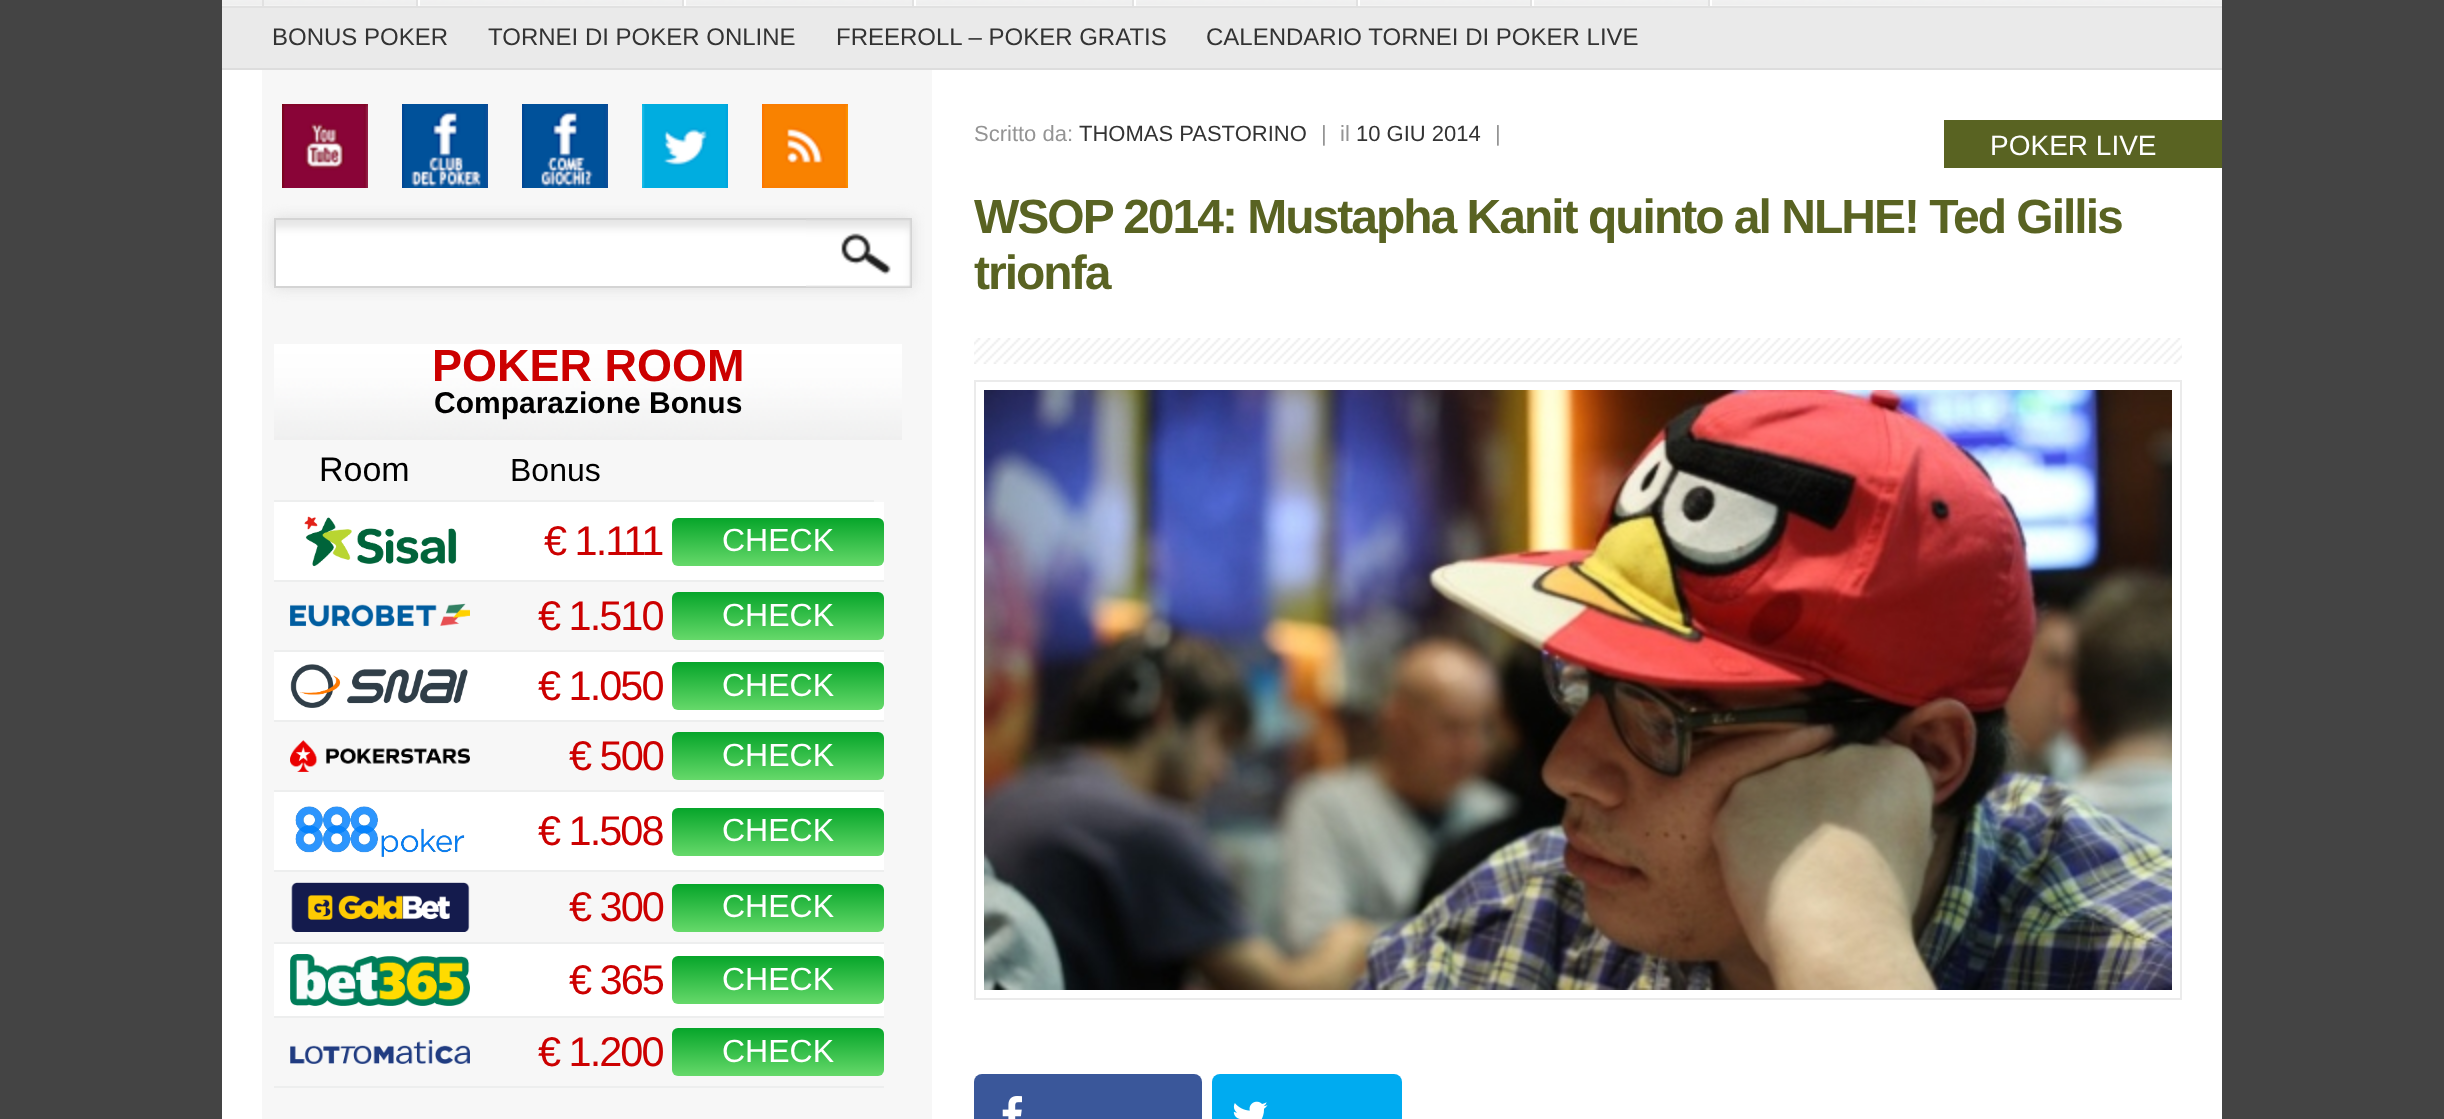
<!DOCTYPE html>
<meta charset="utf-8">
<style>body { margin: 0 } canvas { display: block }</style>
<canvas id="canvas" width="2444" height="1119"></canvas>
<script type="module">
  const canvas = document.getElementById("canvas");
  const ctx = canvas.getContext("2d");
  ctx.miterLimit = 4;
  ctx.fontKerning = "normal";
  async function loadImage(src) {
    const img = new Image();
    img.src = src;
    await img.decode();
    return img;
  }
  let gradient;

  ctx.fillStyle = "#444444";
  ctx.fillRect(0, 0, 2444, 1119);
  ctx.drawImage(await loadImage("img1.png"), 222, 0, 2000, 6);
  ctx.fillStyle = "#e1e1e1";
  ctx.fillRect(222, 6, 2000, 2);
  ctx.fillStyle = "#ffffff";
  ctx.fillRect(418, 0, 2, 6);
  ctx.fillStyle = "#e1e1e1";
  ctx.fillRect(262, 0, 2, 6);
  ctx.fillRect(416, 0, 2, 6);
  ctx.fillStyle = "#ffffff";
  ctx.fillRect(684, 0, 2, 6);
  ctx.fillStyle = "#e1e1e1";
  ctx.fillRect(682, 0, 2, 6);
  ctx.fillStyle = "#ffffff";
  ctx.fillRect(914, 0, 2, 6);
  ctx.fillStyle = "#e1e1e1";
  ctx.fillRect(912, 0, 2, 6);
  ctx.fillStyle = "#ffffff";
  ctx.fillRect(1134, 0, 2, 6);
  ctx.fillStyle = "#e1e1e1";
  ctx.fillRect(1132, 0, 2, 6);
  ctx.fillStyle = "#ffffff";
  ctx.fillRect(1358, 0, 2, 6);
  ctx.fillStyle = "#e1e1e1";
  ctx.fillRect(1356, 0, 2, 6);
  ctx.fillStyle = "#ffffff";
  ctx.fillRect(1532, 0, 2, 6);
  ctx.fillStyle = "#e1e1e1";
  ctx.fillRect(1530, 0, 2, 6);
  ctx.fillStyle = "#ffffff";
  ctx.fillRect(1710, 0, 2, 6);
  ctx.fillStyle = "#e1e1e1";
  ctx.fillRect(1708, 0, 2, 6);
  ctx.fillStyle = "#eaeaea";
  ctx.fillRect(222, 8, 2000, 60);
  ctx.fillStyle = "#dddddd";
  ctx.fillRect(222, 68, 2000, 2);
  ctx.font = "24px Liberation Sans";
  ctx.fillStyle = "#333333";
  ctx.fillText("BONUS POKER", 272, 45);
  ctx.fillText("TORNEI DI POKER ONLINE", 488, 45);
  ctx.fillText("FREEROLL – POKER GRATIS", 836, 45);
  ctx.fillText("CALENDARIO TORNEI DI POKER LIVE", 1206, 45);
  ctx.fillStyle = "#ffffff";
  ctx.fillRect(222, 70, 2000, 1049);
  ctx.fillStyle = "#f7f7f7";
  ctx.fillRect(262, 70, 670, 1049);
  ctx.font = "22px Liberation Sans";
  ctx.fillStyle = "#949494";
  ctx.fillText("Scritto da:", 974, 141);
  ctx.fillStyle = "#333333";
  ctx.fillText("THOMAS PASTORINO", 1079, 141);
  ctx.fillStyle = "#949494";
  ctx.fillText("|", 1321, 141);
  ctx.fillText("il", 1340, 141);
  ctx.fillStyle = "#333333";
  ctx.fillText("10 GIU 2014", 1356, 141);
  ctx.fillStyle = "#949494";
  ctx.fillText("|", 1495, 141);
  ctx.fillStyle = "#596322";
  ctx.fillRect(1944, 120, 278, 48);
  ctx.font = "28px Liberation Sans";
  ctx.fillStyle = "#ffffff";
  ctx.fillText("POKER LIVE", 1990, 155);
  ctx.drawImage(await loadImage("img2.png"), 974, 338, 1208, 26);
  ctx.letterSpacing = "-2px";
  ctx.font = "bold 48px Liberation Sans";
  ctx.fillStyle = "#596322";
  ctx.fillText("WSOP 2014: Mustapha Kanit quinto al NLHE! Ted Gillis", 974, 233);
  ctx.fillText("trionfa", 974, 289);
  ctx.strokeStyle = "#ebebeb";
  ctx.lineWidth = 2;
  ctx.strokeRect(975, 381, 1206, 618);
  ctx.drawImage(await loadImage("img3.png"), 984, 390, 1188, 600);
  ctx.fillStyle = "#3a579a";
  ctx.beginPath();
  ctx.roundRect(974, 1074, 228, 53, 8);
  ctx.fill();
  ctx.drawImage(await loadImage("img4.png"), 1002, 1096, 20, 23);
  ctx.fillStyle = "#00abf0";
  ctx.beginPath();
  ctx.roundRect(1212, 1074, 190, 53, 8);
  ctx.fill();
  ctx.drawImage(await loadImage("img5.png"), 1233, 1101, 35, 18);
  ctx.drawImage(await loadImage("img6.png"), 282, 104, 86, 84);
  ctx.drawImage(await loadImage("img7.png"), 402, 104, 86, 84);
  ctx.drawImage(await loadImage("img8.png"), 522, 104, 86, 84);
  ctx.drawImage(await loadImage("img9.png"), 642, 104, 86, 84);
  ctx.drawImage(await loadImage("img10.png"), 762, 104, 86, 84);
  ctx.fillStyle = "#dddddd";
  ctx.filter = "blur(7px)";
  ctx.beginPath();
  ctx.rect(274, 218, 638, 70);
  ctx.fill();
  ctx.filter = "none";
  ctx.drawImage(await loadImage("img11.png"), 276, 220, 530, 66);
  ctx.fillStyle = "#d4d4d4";
  ctx.fillRect(274, 218, 532, 2);
  ctx.fillRect(274, 286, 532, 2);
  ctx.fillRect(274, 218, 2, 70);
  ctx.drawImage(await loadImage("img12.png"), 806, 218, 106, 70);
  ctx.drawImage(await loadImage("img13.png"), 274, 344, 628, 96);
  ctx.letterSpacing = "0px";
  ctx.font = "bold 45px Liberation Sans";
  ctx.fillStyle = "#cc0000";
  ctx.fillText("POKER ROOM", 432, 381);
  ctx.font = "bold 30px Liberation Sans";
  ctx.fillStyle = "#000000";
  ctx.fillText("Comparazione Bonus", 434, 413);
  ctx.fillStyle = "#edeeee";
  ctx.fillRect(274, 500, 600, 2);
  ctx.font = "34px Liberation Sans";
  ctx.fillStyle = "#000000";
  ctx.fillText("Room", 319, 481);
  ctx.font = "32px Liberation Sans";
  ctx.fillText("Bonus", 510, 481);
  ctx.fillStyle = "#ffffff";
  ctx.fillRect(274, 502, 610, 78);
  ctx.fillStyle = "#edeeee";
  ctx.fillRect(274, 580, 610, 2);
  ctx.drawImage(await loadImage("img14.png"), 304, 516, 153, 51);
  ctx.letterSpacing = "-2px";
  ctx.font = "41.5px Liberation Sans";
  ctx.fillStyle = "#cc0000";
  ctx.fillText("€ 1.111", 544, 555);
  gradient = ctx.createLinearGradient(778, 566, 778, 518);
  gradient.addColorStop(0, "#66d96a");
  gradient.addColorStop(1, "#06a52a");
  ctx.fillStyle = gradient;
  ctx.beginPath();
  ctx.roundRect(672, 518, 212, 48, 6);
  ctx.fill();
  ctx.letterSpacing = "0px";
  ctx.font = "32px Liberation Sans";
  ctx.fillStyle = "#ffffff";
  ctx.fillText("CHECK", 722, 551);
  ctx.fillStyle = "#edeeee";
  ctx.fillRect(274, 650, 610, 2);
  ctx.drawImage(await loadImage("img15.png"), 290, 603, 180, 24);
  ctx.letterSpacing = "-2px";
  ctx.font = "41.5px Liberation Sans";
  ctx.fillStyle = "#cc0000";
  ctx.fillText("€ 1.510", 538, 630);
  gradient = ctx.createLinearGradient(778, 640, 778, 592);
  gradient.addColorStop(0, "#66d96a");
  gradient.addColorStop(1, "#06a52a");
  ctx.fillStyle = gradient;
  ctx.beginPath();
  ctx.roundRect(672, 592, 212, 48, 6);
  ctx.fill();
  ctx.letterSpacing = "0px";
  ctx.font = "32px Liberation Sans";
  ctx.fillStyle = "#ffffff";
  ctx.fillText("CHECK", 722, 626);
  ctx.fillRect(274, 652, 610, 68);
  ctx.fillStyle = "#edeeee";
  ctx.fillRect(274, 720, 610, 2);
  ctx.drawImage(await loadImage("img16.png"), 290, 664, 178, 44);
  ctx.letterSpacing = "-2px";
  ctx.font = "41.5px Liberation Sans";
  ctx.fillStyle = "#cc0000";
  ctx.fillText("€ 1.050", 538, 700);
  gradient = ctx.createLinearGradient(778, 710, 778, 662);
  gradient.addColorStop(0, "#66d96a");
  gradient.addColorStop(1, "#06a52a");
  ctx.fillStyle = gradient;
  ctx.beginPath();
  ctx.roundRect(672, 662, 212, 48, 6);
  ctx.fill();
  ctx.letterSpacing = "0px";
  ctx.font = "32px Liberation Sans";
  ctx.fillStyle = "#ffffff";
  ctx.fillText("CHECK", 722, 696);
  ctx.fillStyle = "#edeeee";
  ctx.fillRect(274, 790, 610, 2);
  ctx.drawImage(await loadImage("img17.png"), 290, 740, 180, 32);
  ctx.letterSpacing = "-2px";
  ctx.font = "41.5px Liberation Sans";
  ctx.fillStyle = "#cc0000";
  ctx.fillText("€ 500", 569, 770);
  gradient = ctx.createLinearGradient(778, 780, 778, 732);
  gradient.addColorStop(0, "#66d96a");
  gradient.addColorStop(1, "#06a52a");
  ctx.fillStyle = gradient;
  ctx.beginPath();
  ctx.roundRect(672, 732, 212, 48, 6);
  ctx.fill();
  ctx.letterSpacing = "0px";
  ctx.font = "32px Liberation Sans";
  ctx.fillStyle = "#ffffff";
  ctx.fillText("CHECK", 722, 766);
  ctx.fillRect(274, 792, 610, 78);
  ctx.fillStyle = "#edeeee";
  ctx.fillRect(274, 870, 610, 2);
  ctx.drawImage(await loadImage("img18.png"), 295, 806, 170, 51);
  ctx.letterSpacing = "-2px";
  ctx.font = "41.5px Liberation Sans";
  ctx.fillStyle = "#cc0000";
  ctx.fillText("€ 1.508", 538, 845);
  gradient = ctx.createLinearGradient(778, 856, 778, 808);
  gradient.addColorStop(0, "#66d96a");
  gradient.addColorStop(1, "#06a52a");
  ctx.fillStyle = gradient;
  ctx.beginPath();
  ctx.roundRect(672, 808, 212, 48, 6);
  ctx.fill();
  ctx.letterSpacing = "0px";
  ctx.font = "32px Liberation Sans";
  ctx.fillStyle = "#ffffff";
  ctx.fillText("CHECK", 722, 841);
  ctx.fillStyle = "#edeeee";
  ctx.fillRect(274, 942, 610, 2);
  ctx.drawImage(await loadImage("img19.png"), 291, 882, 179, 50);
  ctx.letterSpacing = "-2px";
  ctx.font = "41.5px Liberation Sans";
  ctx.fillStyle = "#cc0000";
  ctx.fillText("€ 300", 569, 921);
  gradient = ctx.createLinearGradient(778, 932, 778, 884);
  gradient.addColorStop(0, "#66d96a");
  gradient.addColorStop(1, "#06a52a");
  ctx.fillStyle = gradient;
  ctx.beginPath();
  ctx.roundRect(672, 884, 212, 48, 6);
  ctx.fill();
  ctx.letterSpacing = "0px";
  ctx.font = "32px Liberation Sans";
  ctx.fillStyle = "#ffffff";
  ctx.fillText("CHECK", 722, 917);
  ctx.fillRect(274, 944, 610, 72);
  ctx.fillStyle = "#edeeee";
  ctx.fillRect(274, 1016, 610, 2);
  ctx.drawImage(await loadImage("img20.png"), 290, 954, 180, 52);
  ctx.letterSpacing = "-2px";
  ctx.font = "41.5px Liberation Sans";
  ctx.fillStyle = "#cc0000";
  ctx.fillText("€ 365", 569, 994);
  gradient = ctx.createLinearGradient(778, 1004, 778, 956);
  gradient.addColorStop(0, "#66d96a");
  gradient.addColorStop(1, "#06a52a");
  ctx.fillStyle = gradient;
  ctx.beginPath();
  ctx.roundRect(672, 956, 212, 48, 6);
  ctx.fill();
  ctx.letterSpacing = "0px";
  ctx.font = "32px Liberation Sans";
  ctx.fillStyle = "#ffffff";
  ctx.fillText("CHECK", 722, 990);
  ctx.fillStyle = "#edeeee";
  ctx.fillRect(274, 1086, 610, 2);
  ctx.drawImage(await loadImage("img21.png"), 290, 1040, 180, 24);
  ctx.letterSpacing = "-2px";
  ctx.font = "41.5px Liberation Sans";
  ctx.fillStyle = "#cc0000";
  ctx.fillText("€ 1.200", 538, 1066);
  gradient = ctx.createLinearGradient(778, 1076, 778, 1028);
  gradient.addColorStop(0, "#66d96a");
  gradient.addColorStop(1, "#06a52a");
  ctx.fillStyle = gradient;
  ctx.beginPath();
  ctx.roundRect(672, 1028, 212, 48, 6);
  ctx.fill();
  ctx.letterSpacing = "0px";
  ctx.font = "32px Liberation Sans";
  ctx.fillStyle = "#ffffff";
  ctx.fillText("CHECK", 722, 1062);
</script>
